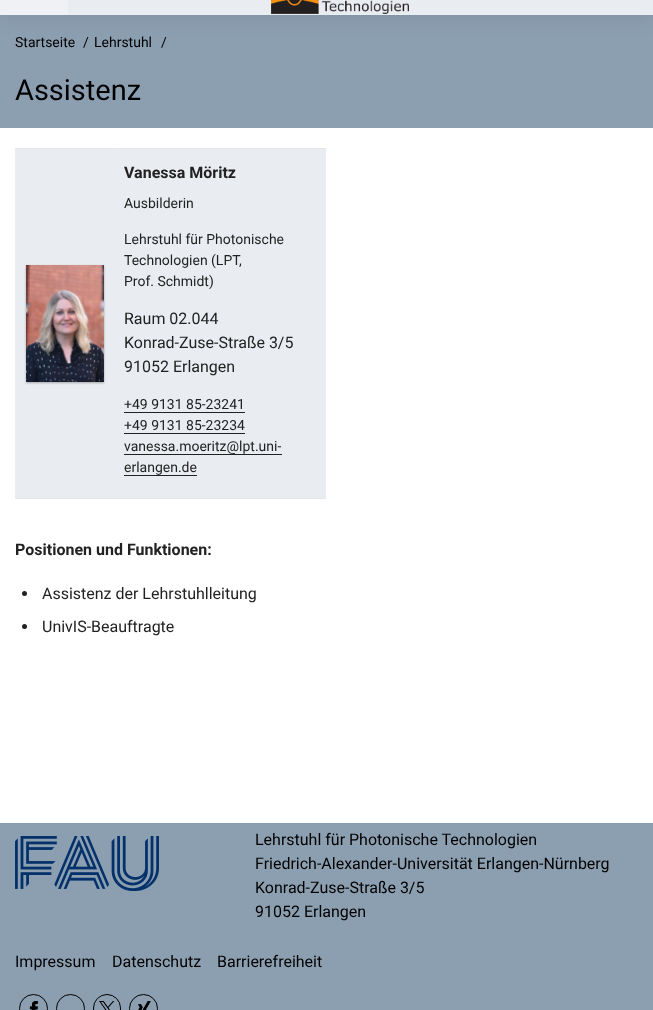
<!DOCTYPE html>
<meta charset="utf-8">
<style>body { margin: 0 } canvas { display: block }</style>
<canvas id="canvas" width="653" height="1010"></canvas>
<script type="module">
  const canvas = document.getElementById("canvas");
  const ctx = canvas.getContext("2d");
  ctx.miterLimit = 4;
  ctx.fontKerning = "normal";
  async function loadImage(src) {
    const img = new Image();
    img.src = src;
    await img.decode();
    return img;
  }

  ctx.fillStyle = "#ffffff";
  ctx.fillRect(0, 0, 653, 1010);
  ctx.fillStyle = "#8c9fb1";
  ctx.fillRect(0, 15, 653, 113);
  ctx.fillStyle = "rgba(0, 0, 0, 0.11)";
  ctx.filter = "blur(10.5px)";
  ctx.beginPath();
  ctx.rect(0, -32, 653, 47);
  ctx.fill();
  ctx.filter = "none";
  ctx.fillStyle = "#e9edf2";
  ctx.fillRect(68, 0, 585, 15);
  ctx.fillStyle = "#eff1f4";
  ctx.fillRect(0, 0, 68, 15);
  ctx.drawImage(await loadImage("img1.png"), 271, 0, 138, 14);
  ctx.font = "14px Roboto";
  ctx.fillStyle = "#000000";
  ctx.fillText("Startseite", 15, 47);
  ctx.fillText("/", 83, 47);
  ctx.fillText("Lehrstuhl", 94, 47);
  ctx.fillText("/", 161, 47);
  ctx.font = "29px Roboto";
  ctx.fillText("Assistenz", 15, 100);
  ctx.fillStyle = "#dfe6ec";
  ctx.fillRect(15, 148, 311, 1);
  ctx.fillRect(15, 498, 311, 1);
  ctx.fillStyle = "#e9edf2";
  ctx.fillRect(325, 148, 1, 351);
  ctx.fillRect(15, 148, 1, 351);
  ctx.fillRect(16, 149, 98, 349);
  ctx.fillRect(114, 148, 1, 351);
  ctx.fillStyle = "rgba(0, 0, 0, 0.3)";
  ctx.filter = "blur(1px)";
  ctx.beginPath();
  ctx.rect(26, 266, 78, 117);
  ctx.fill();
  ctx.filter = "none";
  ctx.drawImage(await loadImage("img2.png"), 26, 265, 78, 117);
  ctx.fillStyle = "#e9edf2";
  ctx.fillRect(115, 149, 210, 349);
  ctx.font = "bold 16px Roboto";
  ctx.fillStyle = "#222222";
  ctx.fillText("Vanessa Möritz", 124, 178);
  ctx.font = "14px Roboto";
  ctx.fillText("Ausbilderin", 124, 208);
  ctx.fillText("Lehrstuhl für Photonische", 124, 244);
  ctx.fillText("Technologien (LPT,", 124, 265);
  ctx.fillText("Prof. Schmidt)", 124, 286);
  ctx.font = "16px Roboto";
  ctx.fillText("Raum 02.044", 124, 324);
  ctx.fillText("Konrad-Zuse-Straße 3/5", 124, 348);
  ctx.fillText("91052 Erlangen", 124, 372);
  ctx.font = "14px Roboto";
  ctx.fillText("+49 9131 85-23241", 124, 409);
  ctx.fillRect(124, 412, 121, 1);
  ctx.fillText("+49 9131 85-23234", 124, 430);
  ctx.fillRect(124, 433, 121, 1);
  ctx.fillRect(124, 454, 158, 1);
  ctx.fillText("vanessa.moeritz@lpt.uni-", 124, 451);
  ctx.fillText("erlangen.de", 124, 472);
  ctx.fillRect(124, 475, 73, 1);
  ctx.font = "bold 16px Roboto";
  ctx.fillText("Positionen und Funktionen:", 15, 555);
  ctx.beginPath();
  ctx.arc(24.5, 593.5, 2.5, 0, Math.PI * 2);
  ctx.fill();
  ctx.font = "16px Roboto";
  ctx.fillText("Assistenz der Lehrstuhlleitung", 42, 599);
  ctx.beginPath();
  ctx.arc(24.5, 626.5, 2.5, 0, Math.PI * 2);
  ctx.fill();
  ctx.fillText("UnivIS-Beauftragte", 42, 632);
  ctx.fillStyle = "#8c9fb1";
  ctx.fillRect(0, 823, 653, 187);
  ctx.drawImage(await loadImage("img3.png"), 15, 836, 144, 55);
  ctx.fillStyle = "#000000";
  ctx.fillText("Lehrstuhl für Photonische Technologien", 255, 845);
  ctx.fillText("Friedrich-Alexander-Universität Erlangen-Nürnberg", 255, 869);
  ctx.fillText("Konrad-Zuse-Straße 3/5", 255, 893);
  ctx.fillText("91052 Erlangen", 255, 917);
  ctx.fillText("Impressum", 15, 967);
  ctx.fillText("Datenschutz", 112, 967);
  ctx.fillText("Barrierefreiheit", 217, 967);
  ctx.beginPath();
  ctx.arc(33.5, 1008.5, 14, 0, Math.PI * 2);
  ctx.strokeStyle = "#000000";
  ctx.stroke();
  ctx.drawImage(await loadImage("img4.png"), 29, 1001, 9, 9);
  ctx.beginPath();
  ctx.arc(70.5, 1008.5, 14, 0, Math.PI * 2);
  ctx.stroke();
  ctx.beginPath();
  ctx.roundRect(93.5, 994.5, 27, 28, 13.5);
  ctx.stroke();
  ctx.drawImage(await loadImage("img5.png"), 99, 1001, 16, 9);
  ctx.beginPath();
  ctx.arc(143.5, 1008.5, 14, 0, Math.PI * 2);
  ctx.stroke();
  ctx.drawImage(await loadImage("img6.png"), 138, 1001, 13, 9);
</script>
